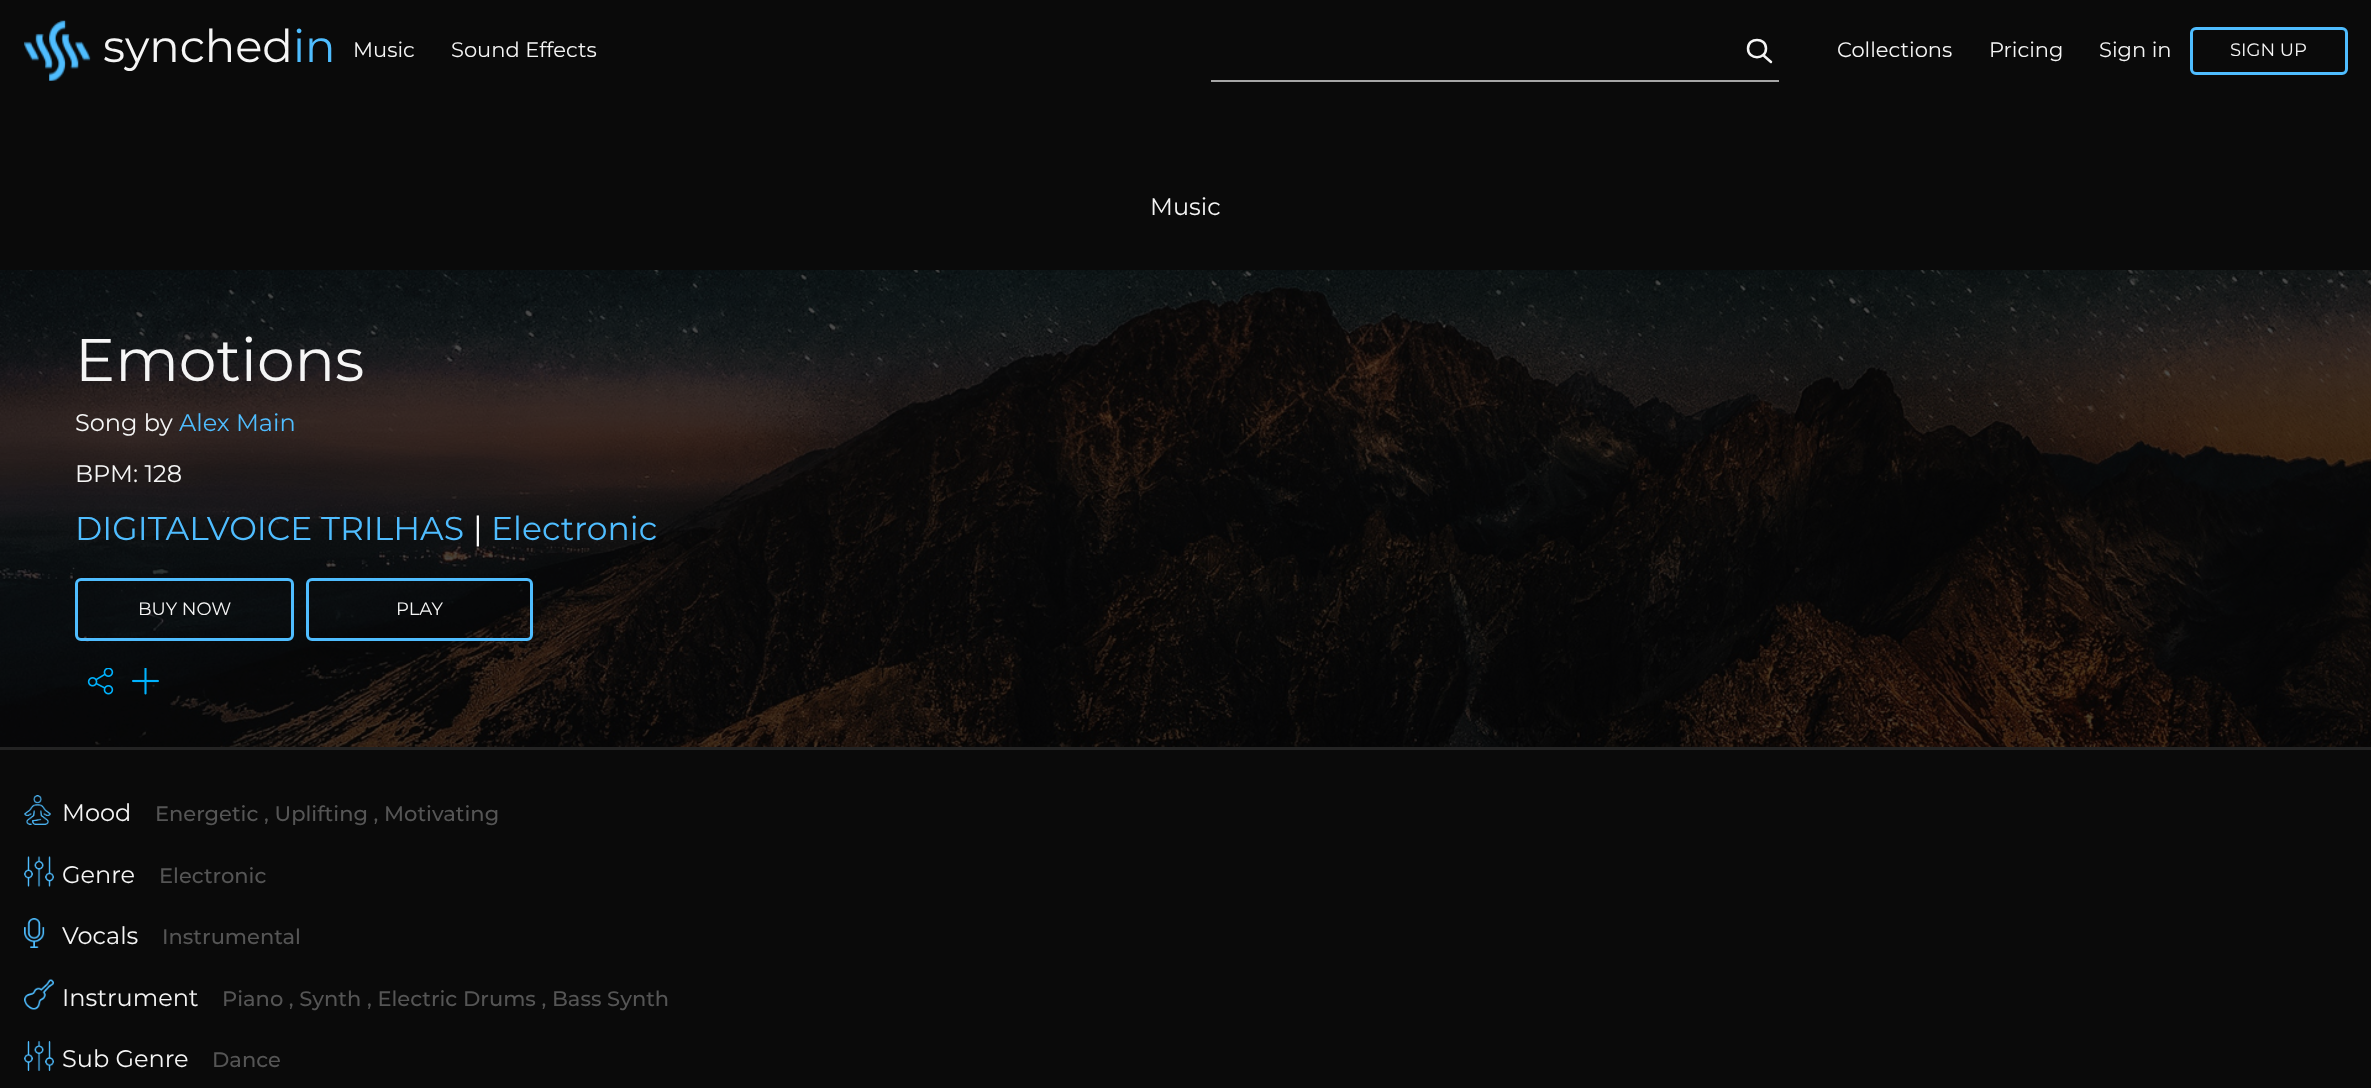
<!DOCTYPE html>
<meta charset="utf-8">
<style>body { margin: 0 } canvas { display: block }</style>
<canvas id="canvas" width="2371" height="1088"></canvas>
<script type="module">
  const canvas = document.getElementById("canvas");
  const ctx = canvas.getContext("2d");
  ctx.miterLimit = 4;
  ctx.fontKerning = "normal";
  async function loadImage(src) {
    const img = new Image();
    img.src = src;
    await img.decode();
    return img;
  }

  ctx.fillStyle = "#0a0a0a";
  ctx.fillRect(0, 0, 2371, 1088);
  ctx.drawImage(await loadImage("img1.png"), 24, 20, 67, 61);
  ctx.font = "45px Montserrat";
  ctx.fillStyle = "#f5f5f5";
  ctx.fillText("synched", 103, 62);
  ctx.fillStyle = "#4fbdff";
  ctx.fillText("in", 293, 62);
  ctx.font = "21px Montserrat";
  ctx.fillStyle = "#f5f5f5";
  ctx.fillText("Music", 353, 57);
  ctx.fillText("Sound Effects", 451, 57);
  ctx.fillStyle = "#a6a6a6";
  ctx.fillRect(1211, 80, 568, 2);
  ctx.beginPath();
  ctx.moveTo(1771, 62);
  ctx.lineTo(1763, 55);
  ctx.moveTo(1766, 48.5);
  ctx.bezierCurveTo(1766, 60, 1748, 60, 1748, 48.5);
  ctx.bezierCurveTo(1748, 37, 1766, 37, 1766, 48.5);
  ctx.closePath();
  ctx.strokeStyle = "#f5f5f5";
  ctx.lineWidth = 2.5;
  ctx.lineCap = "round";
  ctx.lineJoin = "round";
  ctx.stroke();
  ctx.fillStyle = "#f5f5f5";
  ctx.fillText("Collections", 1837, 57);
  ctx.fillText("Pricing", 1989, 57);
  ctx.fillText("Sign in", 2099, 57);
  ctx.beginPath();
  ctx.roundRect(2191.5, 28.5, 155, 45, 4.5);
  ctx.strokeStyle = "#4fbdff";
  ctx.lineWidth = 3;
  ctx.lineJoin = "miter";
  ctx.stroke();
  ctx.font = "18px Montserrat";
  ctx.fillText("SIGN UP", 2230, 56);
  ctx.font = "24px Montserrat";
  ctx.fillText("Music", 1150, 215);
  ctx.drawImage(await loadImage("img2.png"), 0, 270, 2371, 477);
  ctx.fillStyle = "#232323";
  ctx.fillRect(0, 747, 2371, 3);
  ctx.font = "60px Montserrat";
  ctx.fillStyle = "#f5f5f5";
  ctx.fillText("Emotions", 75, 381);
  ctx.font = "24px Montserrat";
  ctx.fillText("Song by", 75, 431);
  ctx.fillStyle = "#4fbdff";
  ctx.fillText("Alex Main", 179, 431);
  ctx.fillStyle = "#f5f5f5";
  ctx.fillText("BPM: 128", 75, 482);
  ctx.font = "33px Montserrat";
  ctx.fillStyle = "#4fbdff";
  ctx.fillText("DIGITALVOICE TRILHAS", 75, 540);
  ctx.fillStyle = "#ffffff";
  ctx.fillText("|", 473, 540);
  ctx.fillStyle = "#4fbdff";
  ctx.fillText("Electronic", 491, 540);
  ctx.beginPath();
  ctx.roundRect(76.5, 579.5, 216, 60, 4.5);
  ctx.stroke();
  ctx.font = "18px Montserrat";
  ctx.fillStyle = "#f5f5f5";
  ctx.fillText("BUY NOW", 138, 615);
  ctx.beginPath();
  ctx.roundRect(307.5, 579.5, 224, 60, 4.5);
  ctx.stroke();
  ctx.fillText("PLAY", 396, 615);
  ctx.drawImage(await loadImage("img3.png"), 87, 668, 27, 27);
  ctx.drawImage(await loadImage("img4.png"), 132, 668, 27, 27);
  ctx.drawImage(await loadImage("img5.png"), 24, 795, 27, 30);
  ctx.font = "24px Montserrat";
  ctx.fillText("Mood", 62, 821);
  ctx.font = "500 21px Montserrat";
  ctx.fillStyle = "#555555";
  ctx.fillText("Energetic , Uplifting , Motivating", 155, 821);
  ctx.drawImage(await loadImage("img6.png"), 24, 856, 30, 31);
  ctx.font = "24px Montserrat";
  ctx.fillStyle = "#f5f5f5";
  ctx.fillText("Genre", 62, 883);
  ctx.font = "500 21px Montserrat";
  ctx.fillStyle = "#555555";
  ctx.fillText("Electronic", 159, 883);
  ctx.drawImage(await loadImage("img7.png"), 24, 918, 21, 30);
  ctx.font = "24px Montserrat";
  ctx.fillStyle = "#f5f5f5";
  ctx.fillText("Vocals", 62, 944);
  ctx.font = "500 21px Montserrat";
  ctx.fillStyle = "#555555";
  ctx.fillText("Instrumental", 162, 944);
  ctx.drawImage(await loadImage("img8.png"), 24, 979, 30, 31);
  ctx.font = "24px Montserrat";
  ctx.fillStyle = "#f5f5f5";
  ctx.fillText("Instrument", 62, 1006);
  ctx.font = "500 21px Montserrat";
  ctx.fillStyle = "#555555";
  ctx.fillText("Piano , Synth , Electric Drums , Bass Synth", 222, 1006);
  ctx.drawImage(await loadImage("img9.png"), 24, 1041, 30, 30);
  ctx.font = "24px Montserrat";
  ctx.fillStyle = "#f5f5f5";
  ctx.fillText("Sub Genre", 62, 1067);
  ctx.font = "500 21px Montserrat";
  ctx.fillStyle = "#555555";
  ctx.fillText("Dance", 212, 1067);
</script>
